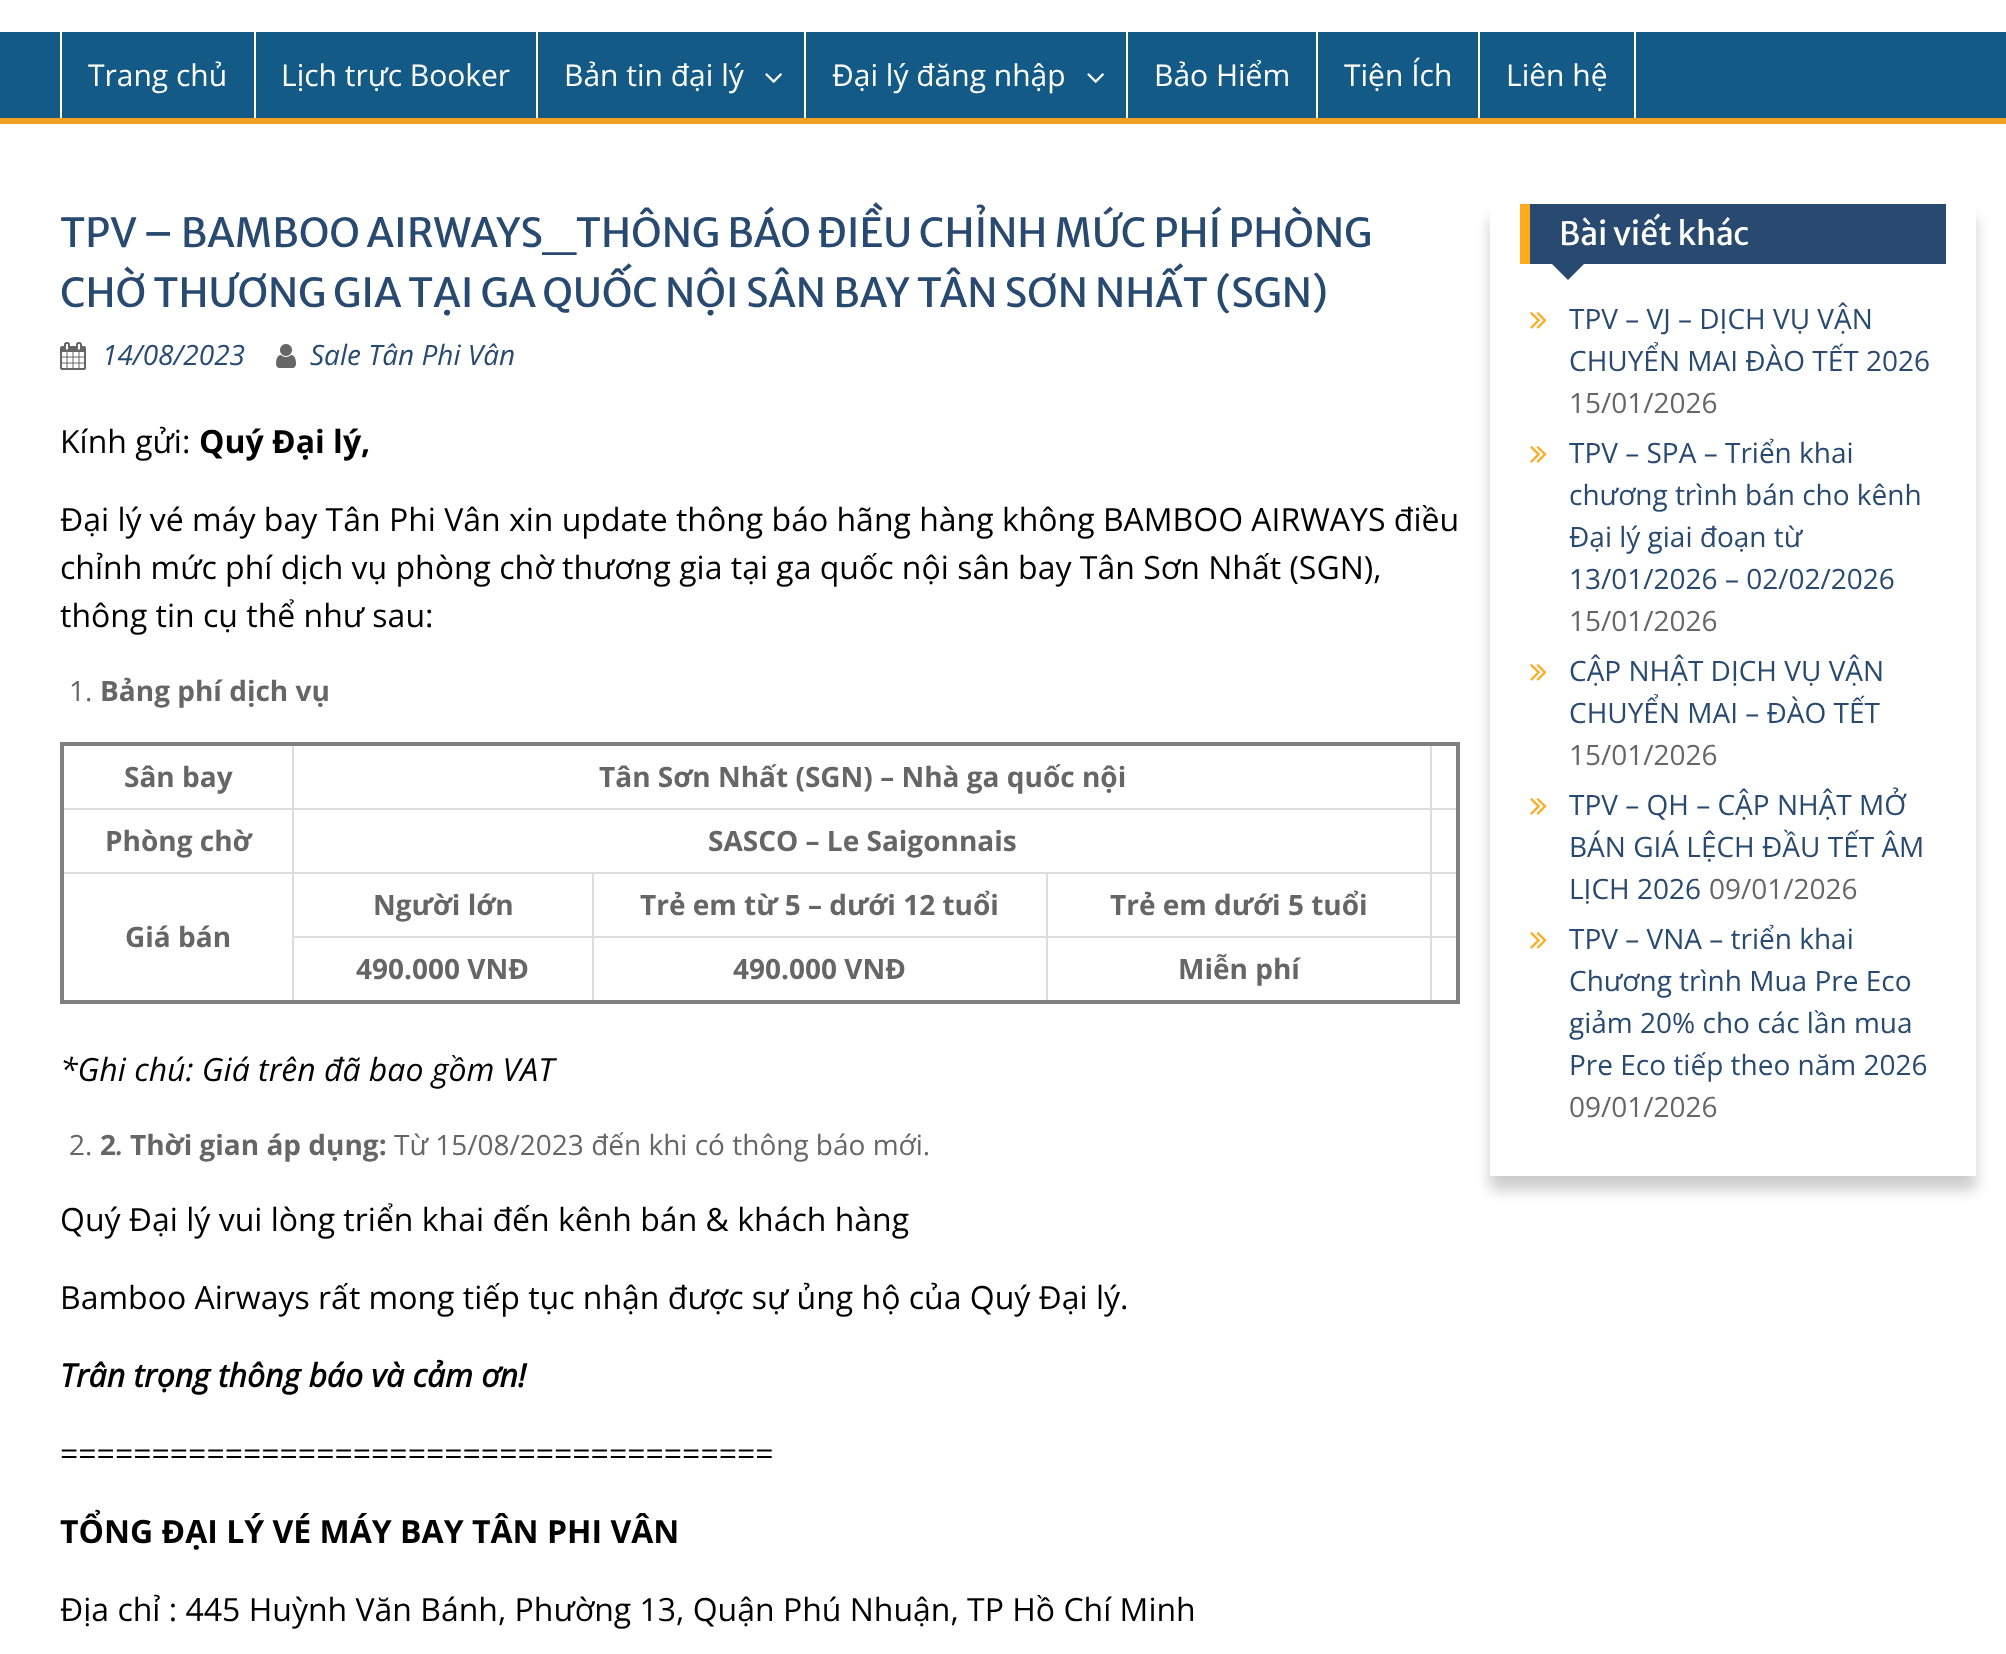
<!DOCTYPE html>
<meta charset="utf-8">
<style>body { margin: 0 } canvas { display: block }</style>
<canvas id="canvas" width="2006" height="1654"></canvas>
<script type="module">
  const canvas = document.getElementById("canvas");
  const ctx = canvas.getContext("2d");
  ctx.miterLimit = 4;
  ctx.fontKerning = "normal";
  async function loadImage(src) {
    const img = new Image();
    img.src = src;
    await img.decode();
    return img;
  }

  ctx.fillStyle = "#ffffff";
  ctx.fillRect(0, 0, 2006, 1654);
  ctx.fillStyle = "#135a87";
  ctx.fillRect(0, 32, 2006, 86);
  ctx.fillStyle = "#f4a024";
  ctx.fillRect(0, 118, 2006, 6);
  ctx.fillStyle = "#ffffff";
  ctx.fillRect(254, 32, 2, 86);
  ctx.fillRect(60, 32, 2, 86);
  ctx.font = "30px Open Sans";
  ctx.fillText("Trang chủ", 88, 86);
  ctx.fillRect(536, 32, 2, 86);
  ctx.fillText("Lịch trực Booker", 281, 86);
  ctx.fillRect(804, 32, 2, 86);
  ctx.fillText("Bản tin đại lý", 564, 86);
  ctx.drawImage(await loadImage("img1.png"), 765, 73, 17, 10);
  ctx.fillRect(1126, 32, 2, 86);
  ctx.fillText("Đại lý đăng nhập", 832, 86);
  ctx.drawImage(await loadImage("img1.png"), 1087, 73, 17, 10);
  ctx.fillRect(1316, 32, 2, 86);
  ctx.fillText("Bảo Hiểm", 1154, 86);
  ctx.fillRect(1478, 32, 2, 86);
  ctx.fillText("Tiện Ích", 1344, 86);
  ctx.fillRect(1634, 32, 2, 86);
  ctx.fillText("Liên hệ", 1506, 86);
  ctx.font = "40px Merriweather Sans";
  ctx.fillStyle = "#294a70";
  ctx.fillText("TPV – BAMBOO AIRWAYS_THÔNG BÁO ĐIỀU CHỈNH MỨC PHÍ PHÒNG", 60, 247);
  ctx.fillText("CHỜ THƯƠNG GIA TẠI GA QUỐC NỘI SÂN BAY TÂN SƠN NHẤT (SGN)", 60, 307);
  ctx.drawImage(await loadImage("img2.png"), 60, 342, 26, 28);
  ctx.font = "italic 28px Open Sans";
  ctx.fillText("14/08/2023", 102, 365);
  ctx.drawImage(await loadImage("img3.png"), 276, 344, 20, 24);
  ctx.fillText("Sale Tân Phi Vân", 310, 365);
  ctx.font = "32px Open Sans";
  ctx.fillStyle = "#000000";
  ctx.fillText("Kính gửi:", 60, 453);
  ctx.font = "bold 32px Open Sans";
  ctx.fillText("Quý Đại lý,", 199, 453);
  ctx.font = "32px Open Sans";
  ctx.fillText("Đại lý vé máy bay Tân Phi Vân xin update thông báo hãng hàng không BAMBOO AIRWAYS điều", 60, 531);
  ctx.fillText("chỉnh mức phí dịch vụ phòng chờ thương gia tại ga quốc nội sân bay Tân Sơn Nhất (SGN),", 60, 579);
  ctx.fillText("thông tin cụ thể như sau:", 60, 627);
  ctx.font = "28px Open Sans";
  ctx.fillStyle = "#666666";
  ctx.fillText("1.", 69, 701);
  ctx.font = "bold 28px Open Sans";
  ctx.fillText("Bảng phí dịch vụ", 100, 701);
  ctx.fillStyle = "#dddddd";
  ctx.fillRect(1430, 808, 28, 2);
  ctx.fillRect(1430, 872, 28, 2);
  ctx.fillRect(1046, 936, 386, 2);
  ctx.fillRect(1430, 936, 2, 66);
  ctx.fillRect(1430, 936, 28, 2);
  ctx.fillRect(1430, 872, 2, 66);
  ctx.fillRect(1046, 872, 386, 2);
  ctx.fillRect(1430, 808, 2, 66);
  ctx.fillRect(292, 808, 1140, 2);
  ctx.fillRect(1046, 936, 2, 66);
  ctx.fillRect(592, 936, 456, 2);
  ctx.fillRect(1046, 872, 2, 66);
  ctx.fillRect(592, 872, 456, 2);
  ctx.fillRect(592, 936, 2, 66);
  ctx.fillRect(292, 936, 302, 2);
  ctx.fillRect(592, 872, 2, 66);
  ctx.fillRect(292, 872, 302, 2);
  ctx.fillRect(292, 936, 2, 66);
  ctx.fillRect(292, 872, 2, 66);
  ctx.fillRect(62, 872, 232, 2);
  ctx.fillRect(292, 808, 2, 66);
  ctx.fillRect(62, 808, 232, 2);
  ctx.fillRect(292, 742, 2, 68);
  ctx.fillRect(1430, 742, 2, 68);
  ctx.fillStyle = "#808080";
  ctx.fillRect(60, 742, 1400, 4);
  ctx.fillRect(1456, 742, 4, 262);
  ctx.fillRect(60, 1000, 1400, 4);
  ctx.fillRect(60, 742, 4, 262);
  ctx.fillStyle = "#666666";
  ctx.fillText("Sân bay", 124, 787);
  ctx.fillText("Tân Sơn Nhất (SGN) – Nhà ga quốc nội", 599, 787);
  ctx.fillText("Phòng chờ", 105, 851);
  ctx.fillText("SASCO – Le Saigonnais", 708, 851);
  ctx.fillText("Người lớn", 373, 915);
  ctx.fillText("Trẻ em từ 5 – dưới 12 tuổi", 640, 915);
  ctx.fillText("Trẻ em dưới 5 tuổi", 1110, 915);
  ctx.fillText("Giá bán", 125, 947);
  ctx.fillText("490.000 VNĐ", 356, 979);
  ctx.fillText("490.000 VNĐ", 733, 979);
  ctx.fillText("Miễn phí", 1178, 979);
  ctx.font = "italic 32px Open Sans";
  ctx.fillStyle = "#000000";
  ctx.fillText("*Ghi chú: Giá trên đã bao gồm VAT", 60, 1081);
  ctx.font = "28px Open Sans";
  ctx.fillStyle = "#666666";
  ctx.fillText("2.", 69, 1155);
  ctx.font = "bold 28px Open Sans";
  ctx.fillText("2", 100, 1155);
  ctx.font = "italic bold 28px Open Sans";
  ctx.fillText(".", 116, 1155);
  ctx.font = "bold 28px Open Sans";
  ctx.fillText("Thời gian áp dụng:", 130, 1155);
  ctx.font = "28px Open Sans";
  ctx.fillText("Từ 15/08/2023 đến khi có thông báo mới.", 394, 1155);
  ctx.font = "32px Open Sans";
  ctx.fillStyle = "#000000";
  ctx.fillText("Quý Đại lý vui lòng triển khai đến kênh bán & khách hàng", 60, 1231);
  ctx.fillText("Bamboo Airways rất mong tiếp tục nhận được sự ủng hộ của Quý Đại lý.", 60, 1309);
  ctx.font = "italic bold 32px Open Sans";
  ctx.fillText("Trân trọng thông báo và cảm ơn!", 60, 1387);
  ctx.font = "32px Open Sans";
  ctx.fillText("=======================================", 60, 1465);
  ctx.font = "bold 32px Open Sans";
  ctx.fillText("TỔNG ĐẠI LÝ VÉ MÁY BAY TÂN PHI VÂN", 60, 1543);
  ctx.font = "32px Open Sans";
  ctx.fillText("Địa chỉ : 445 Huỳnh Văn Bánh, Phường 13, Quận Phú Nhuận, TP Hồ Chí Minh", 60, 1621);
  ctx.save();
  ctx.beginPath();
  ctx.moveTo(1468, 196);
  ctx.lineTo(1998, 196);
  ctx.lineTo(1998, 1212);
  ctx.lineTo(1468, 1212);
  ctx.closePath();
  ctx.moveTo(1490, 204);
  ctx.lineTo(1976, 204);
  ctx.lineTo(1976, 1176);
  ctx.lineTo(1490, 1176);
  ctx.closePath();
  ctx.clip("evenodd");
  ctx.fillStyle = "rgba(0, 0, 0, 0.2)";
  ctx.filter = "blur(7px)";
  ctx.beginPath();
  ctx.rect(1490, 218, 486, 972);
  ctx.fill();
  ctx.filter = "none";
  ctx.restore();
  ctx.fillStyle = "#294a70";
  ctx.fillRect(1530, 204, 416, 60);
  ctx.fillStyle = "#ffab1f";
  ctx.fillRect(1520, 204, 10, 60);
  ctx.font = "32px Merriweather Sans";
  ctx.fillStyle = "#ffffff";
  ctx.fillText("Bài viết khác", 1559, 245);
  ctx.fillStyle = "#294a70";
  ctx.beginPath();
  ctx.moveTo(1550, 262);
  ctx.lineTo(1586, 262);
  ctx.lineTo(1568, 280);
  ctx.closePath();
  ctx.fill();
  ctx.drawImage(await loadImage("img4.png"), 1530, 312, 17, 17);
  ctx.font = "28px Open Sans";
  ctx.fillText("TPV – VJ – DỊCH VỤ VẬN", 1569, 329);
  ctx.fillText("CHUYỂN MAI ĐÀO TẾT 2026", 1569, 371);
  ctx.fillStyle = "#666666";
  ctx.fillText("15/01/2026", 1569, 413);
  ctx.drawImage(await loadImage("img4.png"), 1530, 446, 17, 17);
  ctx.fillStyle = "#294a70";
  ctx.fillText("TPV – SPA – Triển khai", 1569, 463);
  ctx.fillText("chương trình bán cho kênh", 1569, 505);
  ctx.fillText("Đại lý giai đoạn từ", 1569, 547);
  ctx.fillText("13/01/2026 – 02/02/2026", 1569, 589);
  ctx.fillStyle = "#666666";
  ctx.fillText("15/01/2026", 1569, 631);
  ctx.drawImage(await loadImage("img4.png"), 1530, 664, 17, 17);
  ctx.fillStyle = "#294a70";
  ctx.fillText("CẬP NHẬT DỊCH VỤ VẬN", 1569, 681);
  ctx.fillText("CHUYỂN MAI – ĐÀO TẾT", 1569, 723);
  ctx.fillStyle = "#666666";
  ctx.fillText("15/01/2026", 1569, 765);
  ctx.drawImage(await loadImage("img4.png"), 1530, 798, 17, 17);
  ctx.fillStyle = "#294a70";
  ctx.fillText("TPV – QH – CẬP NHẬT MỞ", 1569, 815);
  ctx.fillText("BÁN GIÁ LỆCH ĐẦU TẾT ÂM", 1569, 857);
  ctx.fillText("LỊCH 2026", 1569, 899);
  ctx.fillStyle = "#666666";
  ctx.fillText("09/01/2026", 1709, 899);
  ctx.drawImage(await loadImage("img4.png"), 1530, 932, 17, 17);
  ctx.fillStyle = "#294a70";
  ctx.fillText("TPV – VNA – triển khai", 1569, 949);
  ctx.fillText("Chương trình Mua Pre Eco", 1569, 991);
  ctx.fillText("giảm 20% cho các lần mua", 1569, 1033);
  ctx.fillText("Pre Eco tiếp theo năm 2026", 1569, 1075);
  ctx.fillStyle = "#666666";
  ctx.fillText("09/01/2026", 1569, 1117);
</script>
